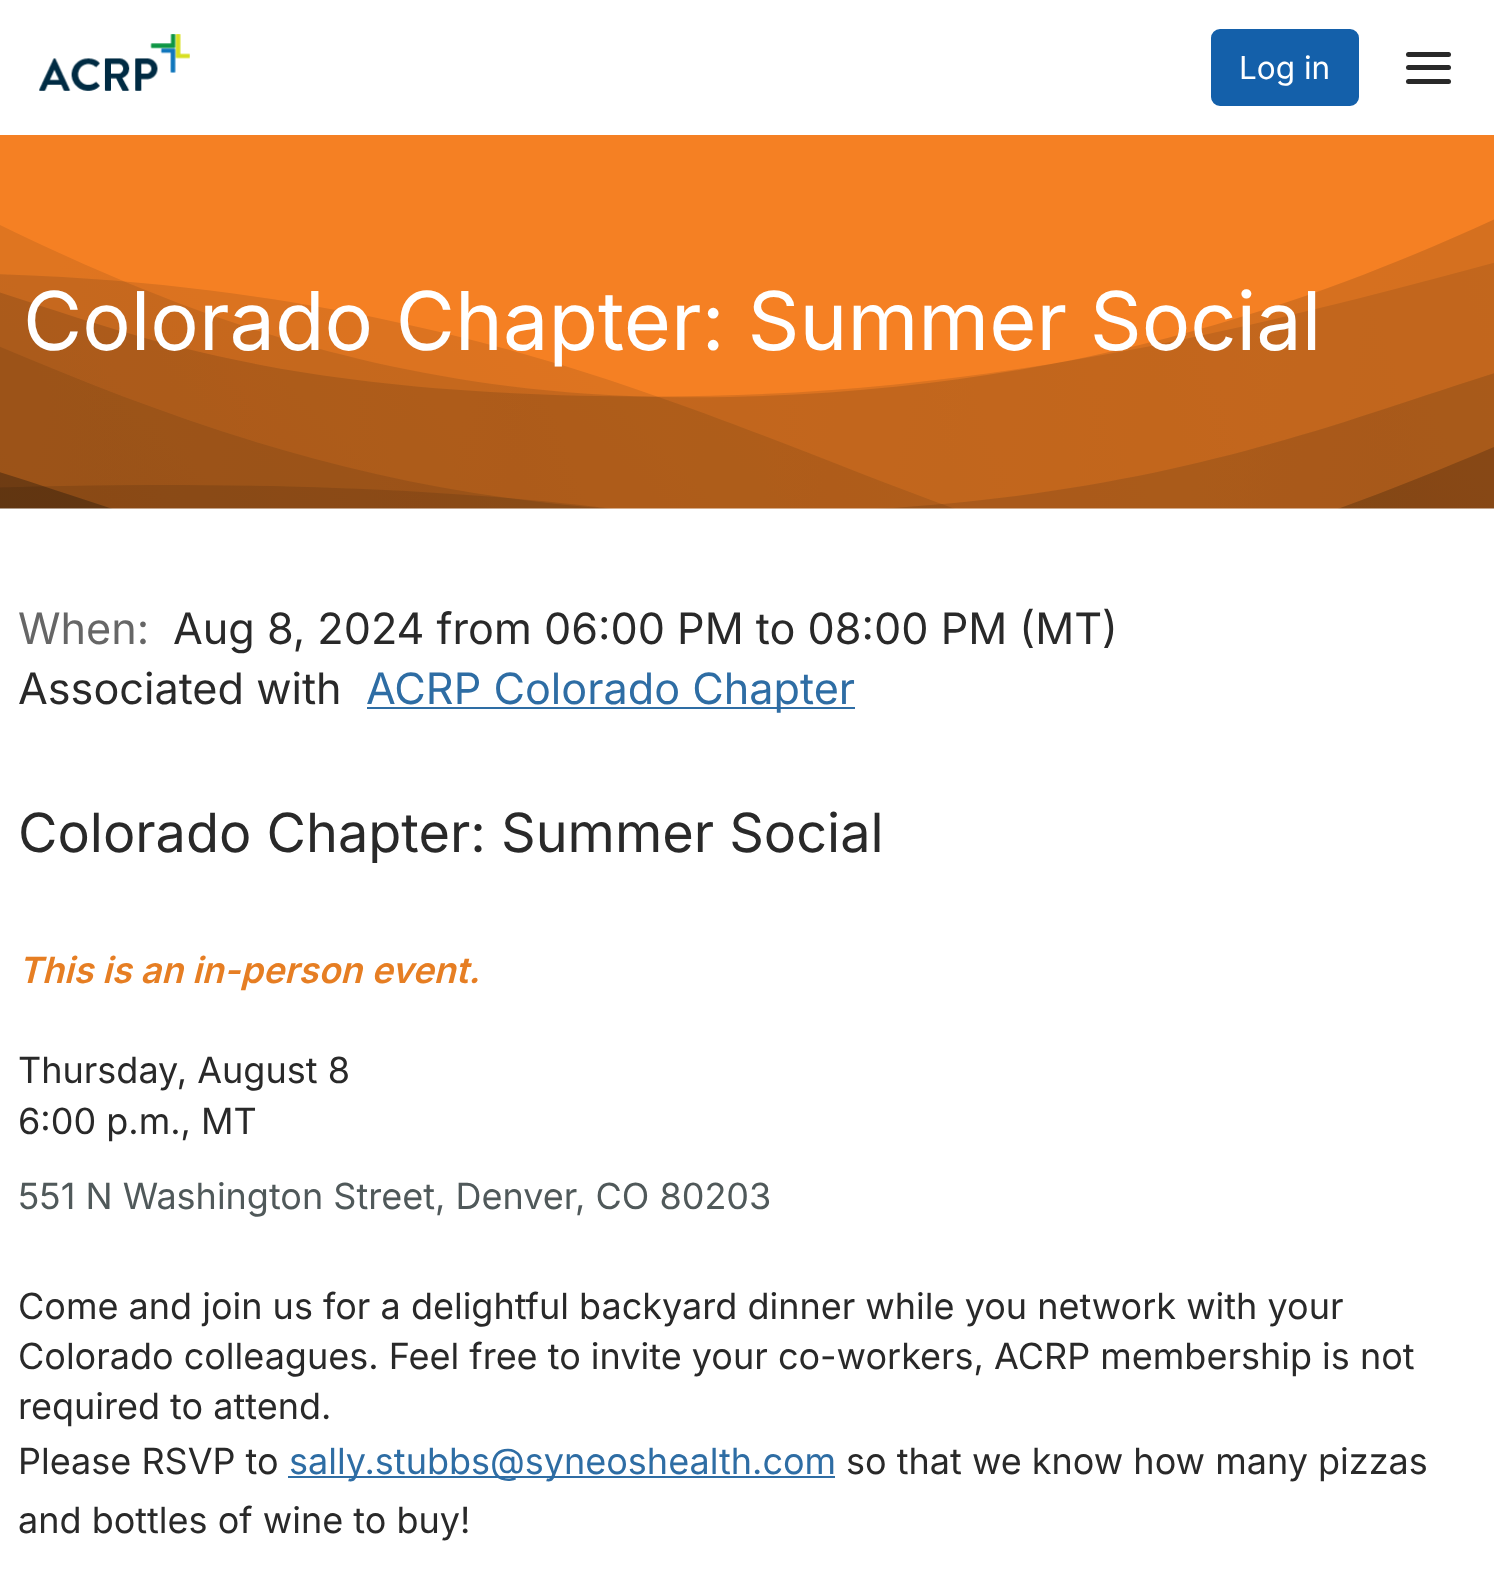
<!DOCTYPE html>
<meta charset="utf-8">
<style>body { margin: 0 } canvas { display: block }</style>
<canvas id="canvas" width="1494" height="1583"></canvas>
<script type="module">
  const canvas = document.getElementById("canvas");
  const ctx = canvas.getContext("2d");
  ctx.miterLimit = 4;
  ctx.fontKerning = "normal";
  async function loadImage(src) {
    const img = new Image();
    img.src = src;
    await img.decode();
    return img;
  }

  ctx.fillStyle = "#ffffff";
  ctx.fillRect(0, 0, 1494, 1583);
  ctx.drawImage(await loadImage("img1.png"), 39, 34, 151, 57);
  ctx.fillStyle = "#1460aa";
  ctx.beginPath();
  ctx.roundRect(1212, 30, 146, 75, 8);
  ctx.fill();
  ctx.strokeStyle = "#1460aa";
  ctx.lineWidth = 2;
  ctx.stroke();
  ctx.font = "31.5px Inter";
  ctx.fillStyle = "#ffffff";
  ctx.fillText("Log in", 1239, 79);
  ctx.fillStyle = "#292929";
  ctx.beginPath();
  ctx.roundRect(1406, 52, 45, 5, 2.5);
  ctx.fill();
  ctx.beginPath();
  ctx.roundRect(1406, 65, 45, 5, 2.5);
  ctx.fill();
  ctx.beginPath();
  ctx.roundRect(1406, 79, 45, 5, 2.5);
  ctx.fill();
  ctx.drawImage(await loadImage("img2.png"), 0, 135, 1494, 374);
  ctx.font = "81px Inter";
  ctx.fillStyle = "#ffffff";
  ctx.fillText("Colorado Chapter: Summer Social", 23, 350);
  ctx.font = "43.2px Inter";
  ctx.fillStyle = "#666666";
  ctx.fillText("When:", 18, 644);
  ctx.fillStyle = "#292929";
  ctx.fillText("Aug 8, 2024 from 06:00 PM to 08:00 PM (MT)", 173, 644);
  ctx.fillText("Associated with", 18, 704);
  ctx.fillStyle = "#2e6da4";
  ctx.fillRect(367, 707, 488, 2);
  ctx.fillText("ACRP Colorado Chapter", 366, 704);
  ctx.font = "54px Inter";
  ctx.fillStyle = "#292929";
  ctx.fillText("Colorado Chapter: Summer Social", 18, 852);
  ctx.font = "italic 600 36px Inter";
  ctx.fillStyle = "#e67e23";
  ctx.fillText("This is an in-person event.", 18, 983);
  ctx.font = "36px Inter";
  ctx.fillStyle = "#292929";
  ctx.fillText("Thursday, August 8", 18, 1083);
  ctx.fillText("6:00 p.m., MT", 18, 1134);
  ctx.fillStyle = "#50595a";
  ctx.fillText("551 N Washington Street, Denver, CO 80203", 18, 1209);
  ctx.fillStyle = "#292929";
  ctx.fillText("Come and join us for a delightful backyard dinner while you network with your", 18, 1319);
  ctx.fillText("Colorado colleagues. Feel free to invite your co-workers, ACRP membership is not", 18, 1369);
  ctx.fillText("required to attend.", 18, 1419);
  ctx.fillText("Please RSVP to", 18, 1474);
  ctx.fillStyle = "#2e6da4";
  ctx.fillRect(288, 1476, 547, 2);
  ctx.fillText("sally.stubbs@syneoshealth.com", 289, 1474);
  ctx.fillStyle = "#292929";
  ctx.fillText("so that we know how many pizzas", 846, 1474);
  ctx.fillText("and bottles of wine to buy!", 18, 1533);
</script>
